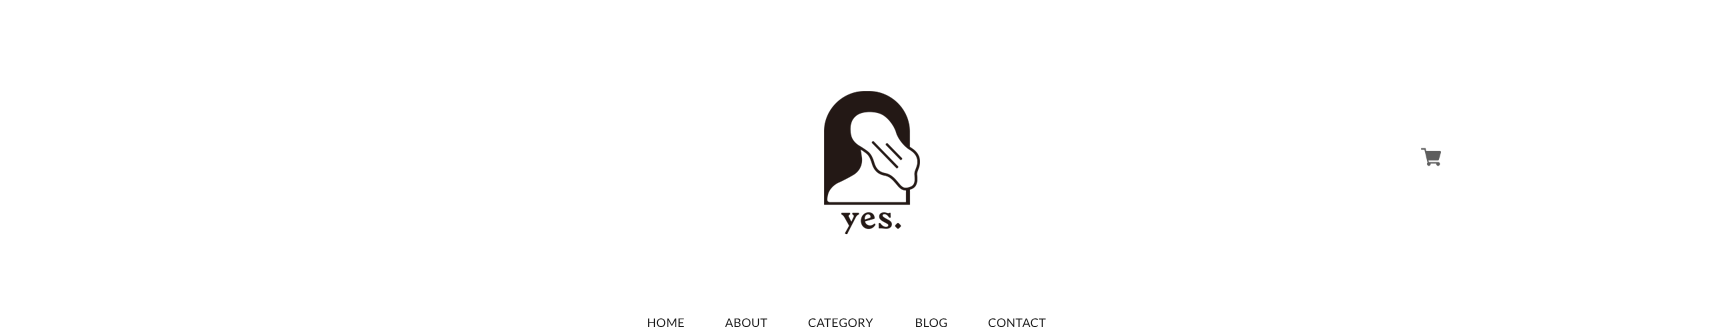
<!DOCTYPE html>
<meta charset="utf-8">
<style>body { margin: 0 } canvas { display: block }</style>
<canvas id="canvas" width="1734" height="334"></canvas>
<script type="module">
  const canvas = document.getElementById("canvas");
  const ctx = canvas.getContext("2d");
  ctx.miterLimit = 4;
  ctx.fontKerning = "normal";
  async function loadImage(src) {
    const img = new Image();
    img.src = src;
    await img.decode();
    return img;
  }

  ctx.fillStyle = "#ffffff";
  ctx.fillRect(0, 0, 1734, 334);
  ctx.drawImage(await loadImage("img1.png"), 824, 91, 96, 144);
  ctx.drawImage(await loadImage("img2.png"), 1421, 147, 20, 20);
  ctx.letterSpacing = "0.25px";
  ctx.font = "12px Lato";
  ctx.fillStyle = "#1a1a1a";
  ctx.fillText("HOME", 647, 327);
  ctx.fillText("ABOUT", 725, 327);
  ctx.fillText("CATEGORY", 808, 327);
  ctx.fillText("BLOG", 915, 327);
  ctx.fillText("CONTACT", 988, 327);
</script>
